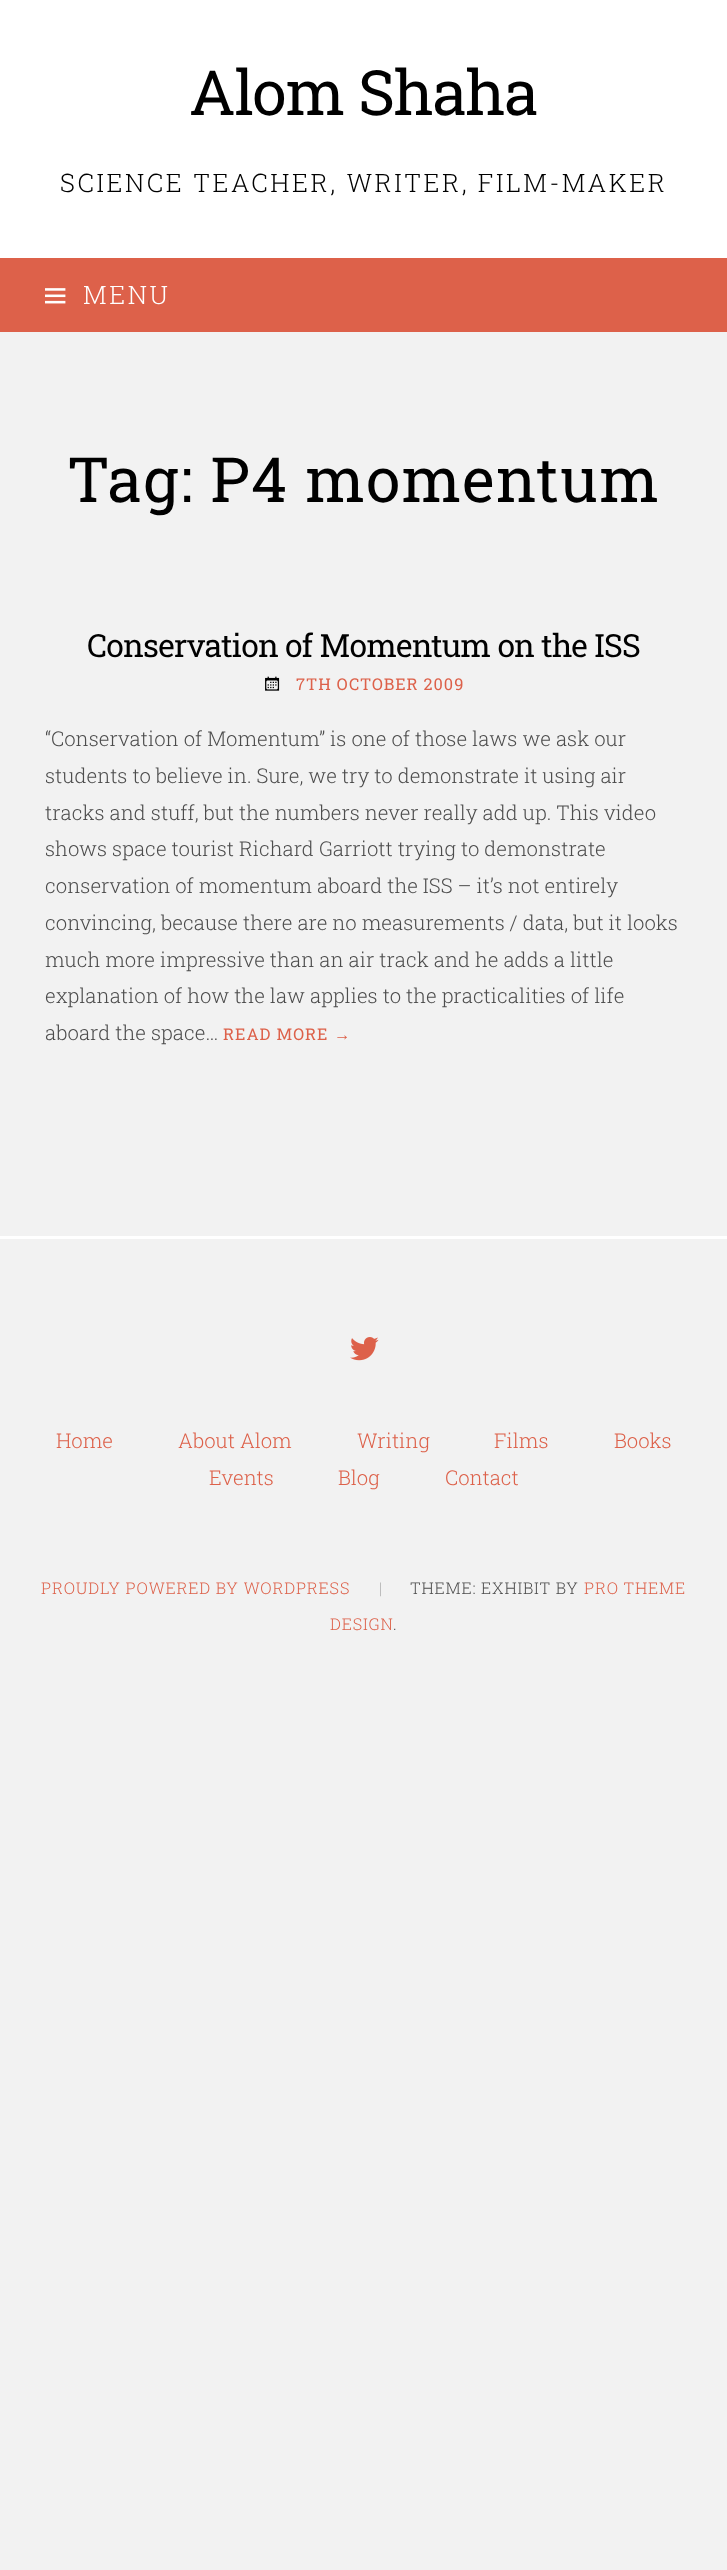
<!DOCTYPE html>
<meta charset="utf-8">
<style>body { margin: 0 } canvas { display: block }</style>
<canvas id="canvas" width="727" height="2570"></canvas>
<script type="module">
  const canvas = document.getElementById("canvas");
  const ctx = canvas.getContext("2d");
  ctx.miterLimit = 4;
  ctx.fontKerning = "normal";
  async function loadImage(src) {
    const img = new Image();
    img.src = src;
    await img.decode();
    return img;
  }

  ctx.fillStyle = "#f2f2f2";
  ctx.fillRect(0, 0, 727, 2570);
  ctx.fillStyle = "#ffffff";
  ctx.fillRect(0, 0, 727, 258);
  ctx.letterSpacing = "-1.25px";
  ctx.font = "62.25px Roboto Slab";
  ctx.fillStyle = "#000000";
  ctx.fillText("Alom Shaha", 189, 115);
  ctx.letterSpacing = "2.55px";
  ctx.font = "300 25.5px Roboto Slab";
  ctx.fillText("SCIENCE TEACHER, WRITER, FILM-MAKER", 60, 192);
  ctx.fillStyle = "#dd614a";
  ctx.fillRect(0, 258, 727, 74);
  ctx.drawImage(await loadImage("img1.png"), 45, 288, 21, 16);
  ctx.fillStyle = "#ffffff";
  ctx.fillText("MENU", 83, 304);
  ctx.letterSpacing = "1.25px";
  ctx.font = "62.25px Roboto Slab";
  ctx.fillStyle = "#000000";
  ctx.fillText("Tag: P4 momentum", 67, 502);
  ctx.letterSpacing = "-0.8px";
  ctx.font = "31.9px Roboto Slab";
  ctx.fillText("Conservation of Momentum on the ISS", 87, 657);
  ctx.drawImage(await loadImage("img2.png"), 265, 676, 15, 15);
  ctx.letterSpacing = "1px";
  ctx.font = "16.3px Roboto Slab";
  ctx.fillStyle = "#dd614a";
  ctx.fillText("7TH OCTOBER 2009", 296, 690);
  ctx.letterSpacing = "0px";
  ctx.font = "300 20.4px Roboto Slab";
  ctx.fillStyle = "#4d4d4d";
  ctx.fillText("“Conservation of Momentum” is one of those laws we ask our", 45, 746);
  ctx.fillText("students to believe in. Sure, we try to demonstrate it using air", 45, 783);
  ctx.fillText("tracks and stuff, but the numbers never really add up. This video", 45, 820);
  ctx.fillText("shows space tourist Richard Garriott trying to demonstrate", 45, 856);
  ctx.fillText("conservation of momentum aboard the ISS – it’s not entirely", 45, 893);
  ctx.fillText("convincing, because there are no measurements / data, but it looks", 45, 930);
  ctx.fillText("much more impressive than an air track and he adds a little", 45, 967);
  ctx.fillText("explanation of how the law applies to the practicalities of life", 45, 1003);
  ctx.fillText("aboard the space…", 45, 1040);
  ctx.letterSpacing = "1px";
  ctx.font = "16.3px Roboto Slab";
  ctx.fillStyle = "#dd614a";
  ctx.fillText("READ MORE", 223, 1040);
  ctx.font = "16.3px Liberation Serif";
  ctx.fillText("→", 334, 1040);
  ctx.fillStyle = "#ffffff";
  ctx.fillRect(0, 1236, 727, 3);
  ctx.drawImage(await loadImage("img3.png"), 350, 1337, 29, 24);
  ctx.letterSpacing = "0px";
  ctx.font = "300 20.4px Roboto Slab";
  ctx.fillStyle = "#dd614a";
  ctx.fillText("Home", 56, 1448);
  ctx.fillText("About Alom", 178, 1448);
  ctx.fillText("Writing", 357, 1448);
  ctx.fillText("Films", 494, 1448);
  ctx.fillText("Books", 614, 1448);
  ctx.fillText("Events", 209, 1485);
  ctx.fillText("Blog", 338, 1485);
  ctx.fillText("Contact", 445, 1485);
  ctx.letterSpacing = "0.8px";
  ctx.font = "300 16.3px Roboto Slab";
  ctx.fillText("PROUDLY POWERED BY WORDPRESS", 41, 1594);
  ctx.fillStyle = "#b3b3b3";
  ctx.fillText("|", 379, 1594);
  ctx.fillStyle = "#4d4d4d";
  ctx.fillText("THEME: EXHIBIT BY", 410, 1594);
  ctx.fillStyle = "#dd614a";
  ctx.fillText("PRO THEME", 584, 1594);
  ctx.fillText("DESIGN", 330, 1630);
  ctx.fillStyle = "#4d4d4d";
  ctx.fillText(".", 393, 1630);
</script>
